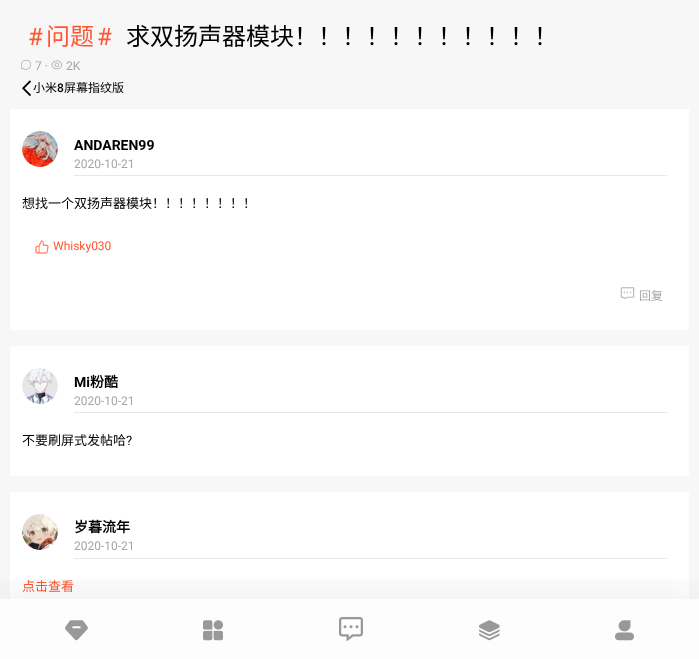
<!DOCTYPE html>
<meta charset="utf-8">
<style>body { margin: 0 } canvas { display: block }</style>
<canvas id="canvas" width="699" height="659"></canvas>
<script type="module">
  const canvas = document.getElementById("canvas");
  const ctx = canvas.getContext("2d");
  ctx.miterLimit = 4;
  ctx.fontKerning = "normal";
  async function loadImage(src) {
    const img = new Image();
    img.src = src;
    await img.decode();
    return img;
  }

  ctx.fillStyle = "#f7f7f7";
  ctx.fillRect(0, 0, 699, 659);
  ctx.fillStyle = "#fdfdfd";
  ctx.fillRect(0, 599, 699, 60);
  ctx.font = "24px Roboto";
  ctx.fillStyle = "#ff5733";
  ctx.fillText("#", 28, 45);
  ctx.font = "24px Noto Sans CJK SC";
  ctx.fillText("问题", 46, 45);
  ctx.font = "24px Roboto";
  ctx.fillText("#", 97, 45);
  ctx.font = "24px Noto Sans CJK SC";
  ctx.fillStyle = "#000000";
  ctx.fillText("求双扬声器模块！！！！！！！！！！！", 126, 45);
  ctx.drawImage(await loadImage("img1.png"), 21, 59, 10, 11);
  ctx.font = "12px Roboto";
  ctx.fillStyle = "#a6a6a6";
  ctx.fillText("7 ·", 35, 70);
  ctx.drawImage(await loadImage("img2.png"), 51, 60, 12, 10);
  ctx.fillText("2K", 66, 70);
  ctx.drawImage(await loadImage("img3.png"), 22, 80, 9, 16);
  ctx.font = "12px Noto Sans CJK SC";
  ctx.fillStyle = "#000000";
  ctx.fillText("小米", 33, 92);
  ctx.font = "500 12px Roboto";
  ctx.fillText("8", 57, 92);
  ctx.font = "12px Noto Sans CJK SC";
  ctx.fillText("屏幕指纹版", 64, 92);
  ctx.fillStyle = "#ffffff";
  ctx.fillRect(10, 109, 679, 221);
  ctx.drawImage(await loadImage("img4.png"), 22, 131, 36, 36);
  ctx.font = "bold 14px Roboto";
  ctx.fillStyle = "#000000";
  ctx.fillText("ANDAREN99", 74, 150);
  ctx.fillStyle = "#e8e8e8";
  ctx.fillRect(74, 175, 593, 1);
  ctx.font = "12px Roboto";
  ctx.fillStyle = "#a6a6a6";
  ctx.fillText("2020-10-21", 74, 168);
  ctx.font = "13px Noto Sans CJK SC";
  ctx.fillStyle = "#000000";
  ctx.fillText("想找一个双扬声器模块！！！！！！！！", 22, 208);
  ctx.drawImage(await loadImage("img5.png"), 35, 240, 14, 14);
  ctx.font = "12px Roboto";
  ctx.fillStyle = "#ff5733";
  ctx.fillText("Whisky030", 53, 250);
  ctx.drawImage(await loadImage("img6.png"), 620, 287, 15, 12);
  ctx.font = "12px Noto Sans CJK SC";
  ctx.fillStyle = "#a6a6a6";
  ctx.fillText("回复", 639, 300);
  ctx.fillStyle = "#ffffff";
  ctx.fillRect(10, 346, 679, 130);
  ctx.drawImage(await loadImage("img7.png"), 22, 368, 36, 36);
  ctx.font = "bold 14px Roboto";
  ctx.fillStyle = "#000000";
  ctx.fillText("Mi", 74, 387);
  ctx.font = "bold 14px Noto Sans CJK SC";
  ctx.fillText("粉酷", 90, 387);
  ctx.fillStyle = "#e8e8e8";
  ctx.fillRect(74, 412, 593, 1);
  ctx.font = "12px Roboto";
  ctx.fillStyle = "#a6a6a6";
  ctx.fillText("2020-10-21", 74, 405);
  ctx.font = "13px Noto Sans CJK SC";
  ctx.fillStyle = "#000000";
  ctx.fillText("不要刷屏式发帖哈", 22, 445);
  ctx.font = "13px Roboto";
  ctx.fillText("?", 126, 445);
  ctx.fillStyle = "#ffffff";
  ctx.fillRect(10, 492, 679, 107);
  ctx.drawImage(await loadImage("img8.png"), 22, 514, 36, 36);
  ctx.font = "bold 14px Noto Sans CJK SC";
  ctx.fillStyle = "#000000";
  ctx.fillText("岁暮流年", 74, 532);
  ctx.fillStyle = "#e8e8e8";
  ctx.fillRect(74, 558, 593, 1);
  ctx.font = "12px Roboto";
  ctx.fillStyle = "#a6a6a6";
  ctx.fillText("2020-10-21", 74, 550);
  ctx.font = "13px Noto Sans CJK SC";
  ctx.fillStyle = "#ff5733";
  ctx.fillText("点击查看", 22, 591);
  ctx.save();
  ctx.beginPath();
  ctx.rect(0, 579, 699, 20);
  ctx.clip();
  ctx.fillStyle = "rgba(0, 0, 0, 0.08)";
  ctx.filter = "blur(25px)";
  ctx.beginPath();
  ctx.rect(0, 596, 699, 60);
  ctx.fill();
  ctx.filter = "none";
  ctx.restore();
  ctx.drawImage(await loadImage("img9.png"), 65, 620, 23, 21);
  ctx.drawImage(await loadImage("img10.png"), 203, 620, 20, 21);
  ctx.drawImage(await loadImage("img11.png"), 339, 617, 24, 24);
  ctx.drawImage(await loadImage("img12.png"), 479, 620, 21, 21);
  ctx.drawImage(await loadImage("img13.png"), 615, 620, 19, 21);
</script>
